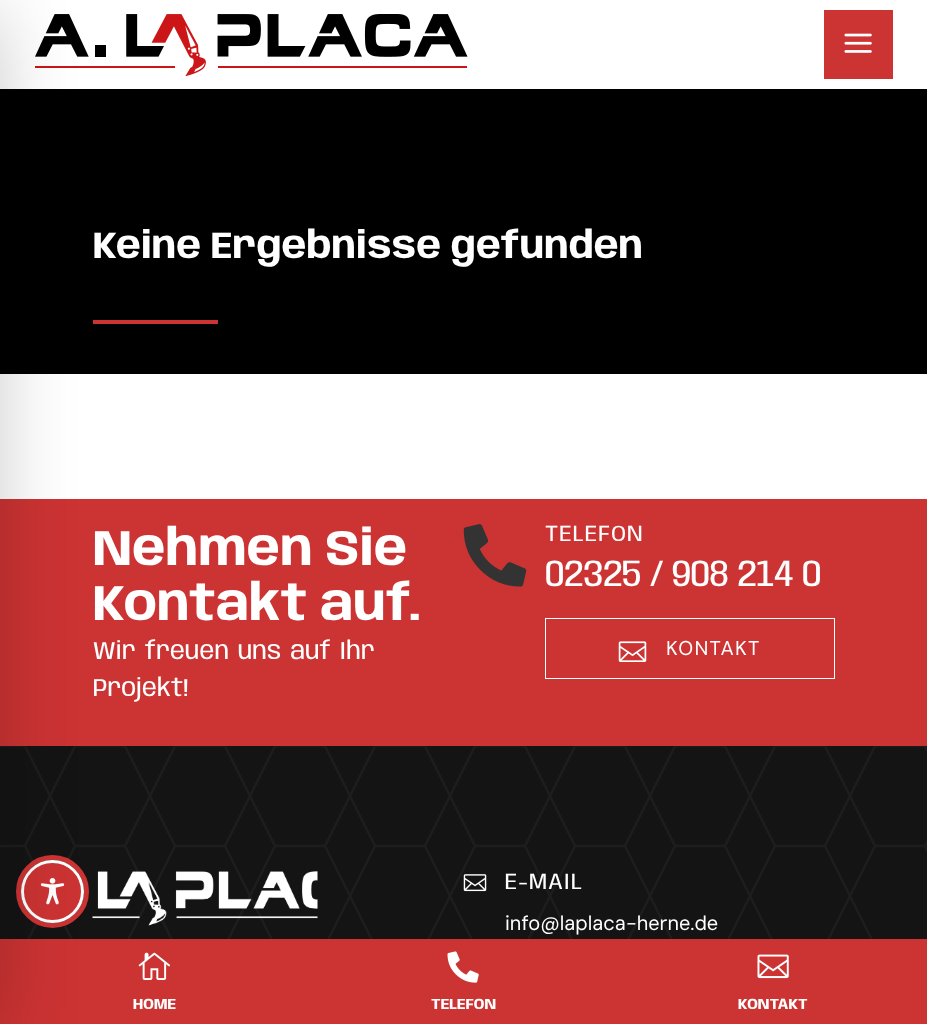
<!DOCTYPE html>
<meta charset="utf-8">
<style>body { margin: 0 } canvas { display: block }</style>
<canvas id="canvas" width="927" height="1024"></canvas>
<script type="module">
  const canvas = document.getElementById("canvas");
  const ctx = canvas.getContext("2d");
  ctx.miterLimit = 4;
  ctx.fontKerning = "normal";
  async function loadImage(src) {
    const img = new Image();
    img.src = src;
    await img.decode();
    return img;
  }

  ctx.fillStyle = "#ffffff";
  ctx.fillRect(0, 0, 927, 1024);
  ctx.drawImage(await loadImage("img1.png"), 35, 14, 433, 62);
  ctx.fillStyle = "#000000";
  ctx.fillRect(0, 89, 927, 285);
  ctx.fillStyle = "#cc3333";
  ctx.fillRect(93, 320, 125, 4);
  ctx.fillRect(0, 499, 927, 247);
  ctx.fillStyle = "#141414";
  ctx.fillRect(0, 746, 927, 193);
  ctx.drawImage(await loadImage("img5.png"), 0, 746, 927, 193);
  ctx.drawImage(await loadImage("img6.png"), 92, 871, 226, 55);
  ctx.fillStyle = "#cc3333";
  ctx.fillRect(0, 939, 927, 85);
  ctx.beginPath();
  ctx.arc(52.5, 891.5, 34, 0, Math.PI * 2);
  ctx.strokeStyle = "#cc3333";
  ctx.lineWidth = 5;
  ctx.stroke();
  ctx.beginPath();
  ctx.arc(52.5, 891.5, 30, 0, Math.PI * 2);
  ctx.fill();
  ctx.strokeStyle = "#ffffff";
  ctx.lineWidth = 3;
  ctx.stroke();
  ctx.drawImage(await loadImage("img11.png"), 40, 878, 25, 27);
  ctx.fillStyle = "rgba(0, 0, 0, 0.2)";
  ctx.filter = "blur(37.5px)";
  ctx.beginPath();
  ctx.rect(-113, 13, 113, 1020);
  ctx.fill();
  ctx.filter = "none";
  ctx.fillStyle = "#cc3333";
  ctx.fillRect(824, 10, 69, 69);
  ctx.drawImage(await loadImage("img2.png"), 844, 33, 28, 20);
  ctx.font = "100 37.5px Anybody";
  ctx.fillStyle = "#ffffff";
  ctx.fillText("Keine Ergebnisse gefunden", 93, 258);
  ctx.font = "100 50px Anybody";
  ctx.fillText("Nehmen Sie", 93, 565);
  ctx.fillText("Kontakt auf.", 93, 620);
  ctx.wordSpacing = "2.5px";
  ctx.font = "25px Anybody";
  ctx.fillText("Wir freuen uns auf Ihr", 93, 659);
  ctx.wordSpacing = "0px";
  ctx.fillText("Projekt!", 93, 696);
  ctx.drawImage(await loadImage("img3.png"), 463, 524, 64, 63);
  ctx.letterSpacing = "1.25px";
  ctx.font = "22.5px Anybody";
  ctx.fillText("TELEFON", 545, 541);
  ctx.letterSpacing = "-0.6px";
  ctx.font = "37.5px Anybody";
  ctx.fillText("02325 / 908 214 0", 545, 586);
  ctx.lineWidth = 1;
  ctx.strokeRect(545.5, 618.5, 289, 60);
  ctx.drawImage(await loadImage("img4.png"), 618, 641, 29, 21);
  ctx.letterSpacing = "1.25px";
  ctx.font = "20px DM Sans";
  ctx.fillText("KONTAKT", 666, 655);
  ctx.drawImage(await loadImage("img7.png"), 463, 874, 24, 18);
  ctx.font = "22.5px Anybody";
  ctx.fillText("E-MAIL", 505, 889);
  ctx.letterSpacing = "0px";
  ctx.font = "20px DM Sans";
  ctx.fillText("info@laplaca-herne.de", 505, 930);
  ctx.drawImage(await loadImage("img8.png"), 138, 952, 32, 28);
  ctx.font = "100 15px Anybody";
  ctx.fillText("HOME", 133, 1009);
  ctx.drawImage(await loadImage("img9.png"), 447, 951, 32, 32);
  ctx.fillText("TELEFON", 431, 1009);
  ctx.drawImage(await loadImage("img10.png"), 757, 954, 32, 25);
  ctx.fillText("KONTAKT", 738, 1009);
</script>
